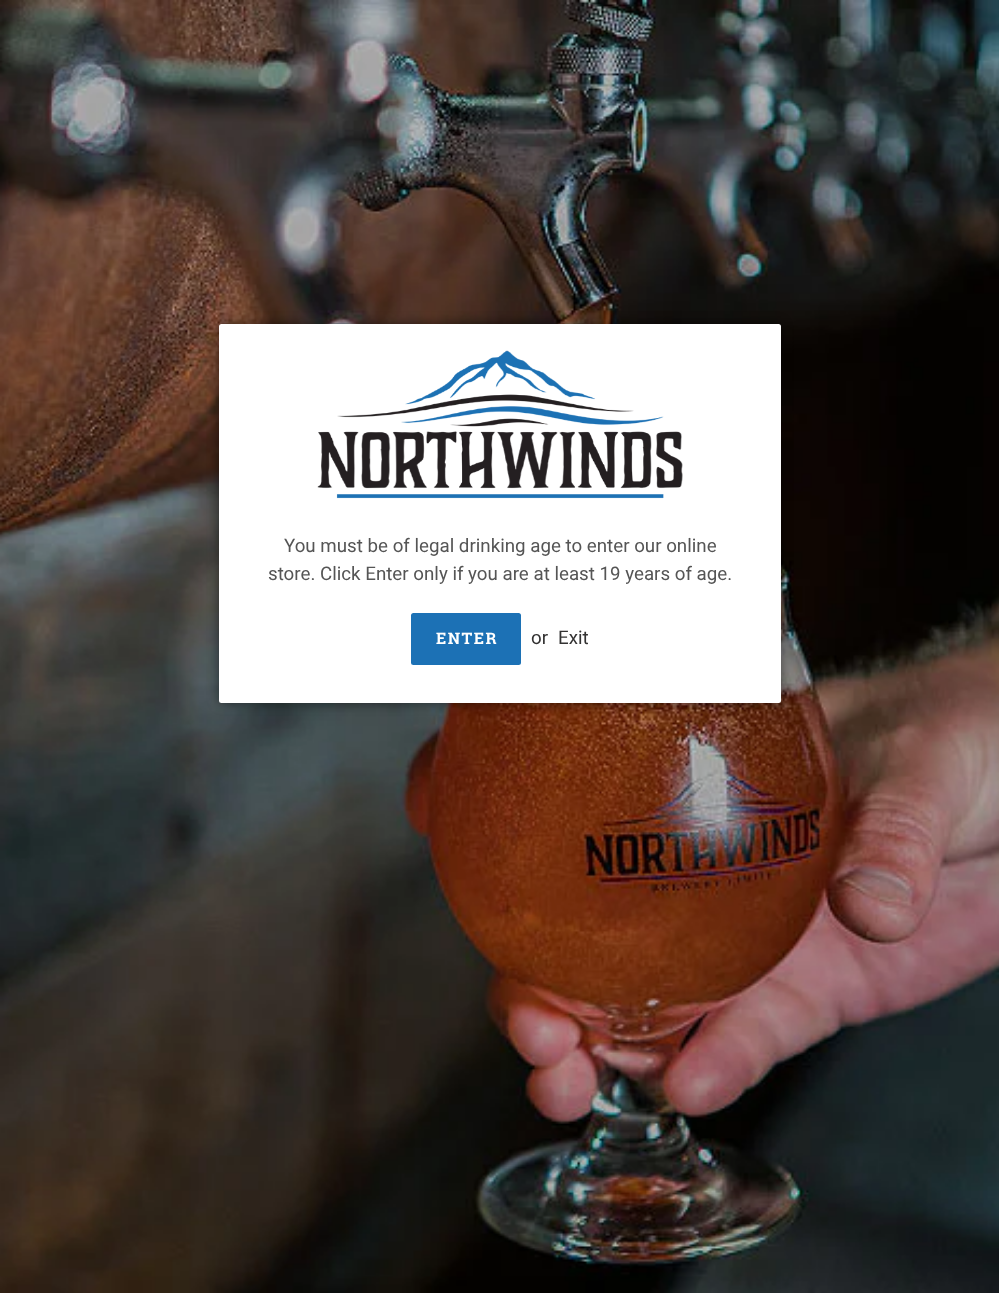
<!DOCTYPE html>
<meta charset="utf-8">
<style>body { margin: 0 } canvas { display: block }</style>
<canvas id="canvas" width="999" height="1293"></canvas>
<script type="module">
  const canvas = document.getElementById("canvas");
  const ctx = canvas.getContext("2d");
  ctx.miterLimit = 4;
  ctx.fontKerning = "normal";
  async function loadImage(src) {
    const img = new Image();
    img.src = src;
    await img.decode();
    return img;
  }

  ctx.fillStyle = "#ffffff";
  ctx.fillRect(0, 0, 999, 1293);
  ctx.drawImage(await loadImage("img1.png"), 0, 0, 999, 1293);
  ctx.fillStyle = "rgba(0, 0, 0, 0.5)";
  ctx.filter = "blur(6px)";
  ctx.beginPath();
  ctx.roundRect(219, 324, 562, 379, 2.5);
  ctx.fill();
  ctx.filter = "none";
  ctx.fillStyle = "#ffffff";
  ctx.beginPath();
  ctx.roundRect(219, 324, 562, 379, 2.5);
  ctx.fill();
  ctx.drawImage(await loadImage("img2.png"), 317, 350, 366, 149);
  ctx.font = "18.75px Roboto";
  ctx.fillStyle = "#555555";
  ctx.fillText("You must be of legal drinking age to enter our online", 284, 552);
  ctx.fillText("store. Click Enter only if you are at least 19 years of age.", 268, 580);
  ctx.fillStyle = "#1c71b5";
  ctx.beginPath();
  ctx.roundRect(411, 613, 110, 52, 2.5);
  ctx.fill();
  ctx.letterSpacing = "1.5px";
  ctx.font = "bold 16px Roboto Slab";
  ctx.fillStyle = "#ffffff";
  ctx.fillText("ENTER", 436, 644);
  ctx.letterSpacing = "0px";
  ctx.font = "18.75px Roboto";
  ctx.fillStyle = "#333232";
  ctx.fillText("or", 531, 644);
  ctx.fillText("Exit", 558, 644);
</script>
